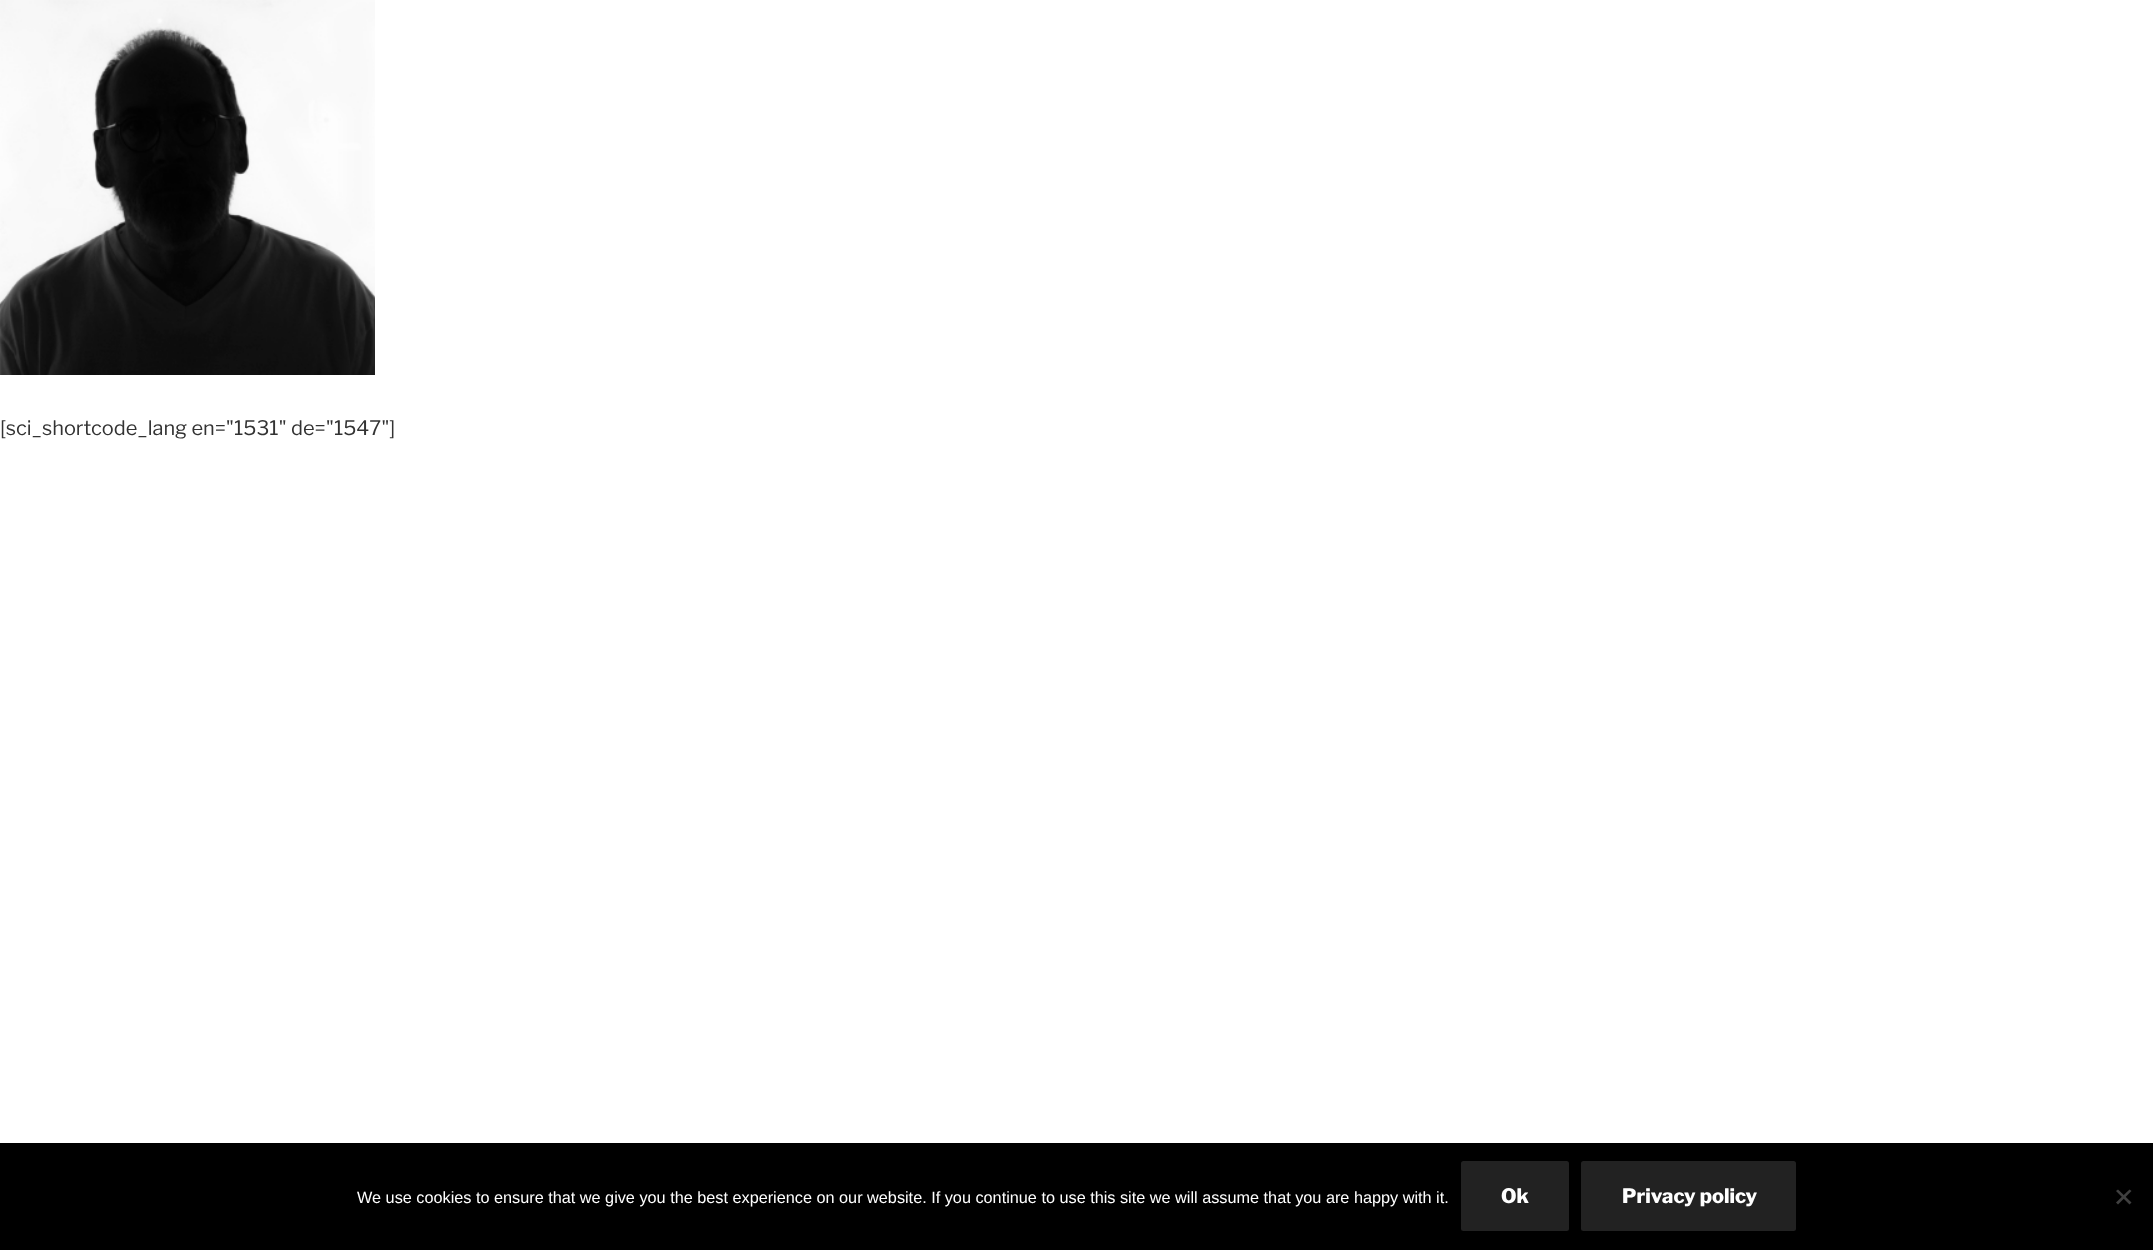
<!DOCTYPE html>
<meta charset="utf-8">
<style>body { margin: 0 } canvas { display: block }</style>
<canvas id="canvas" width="2153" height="1250"></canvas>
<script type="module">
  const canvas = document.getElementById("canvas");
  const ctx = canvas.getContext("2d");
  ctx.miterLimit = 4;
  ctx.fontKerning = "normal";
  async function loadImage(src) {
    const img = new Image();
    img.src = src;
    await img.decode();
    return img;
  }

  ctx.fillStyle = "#ffffff";
  ctx.fillRect(0, 0, 2153, 1250);
  ctx.drawImage(await loadImage("img1.png"), 0, 0, 375, 375);
  ctx.font = "100 20px Libre Franklin";
  ctx.fillStyle = "#333333";
  ctx.fillText("[sci_shortcode_lang en=\"1531\" de=\"1547\"]", 0, 435);
  ctx.fillStyle = "#000000";
  ctx.fillRect(0, 1143, 2153, 107);
  ctx.font = "16.25px Liberation Sans";
  ctx.fillStyle = "#ffffff";
  ctx.fillText("We use cookies to ensure that we give you the best experience on our website. If you continue to use this site we will assume that you are happy with it.", 357, 1203);
  ctx.fillStyle = "#222222";
  ctx.beginPath();
  ctx.roundRect(1461, 1161, 108, 70, 2.5);
  ctx.fill();
  ctx.font = "100 20px 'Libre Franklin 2'";
  ctx.fillStyle = "#ffffff";
  ctx.fillText("Ok", 1501, 1203);
  ctx.fillStyle = "#222222";
  ctx.beginPath();
  ctx.roundRect(1581, 1161, 215, 70, 2.5);
  ctx.fill();
  ctx.fillStyle = "#ffffff";
  ctx.fillText("Privacy policy", 1622, 1203);
  ctx.fillStyle = "#404040";
  ctx.beginPath();
  ctx.moveTo(2129.5, 1189.5);
  ctx.lineTo(2131.5, 1191);
  ctx.lineTo(2118, 1204.5);
  ctx.lineTo(2116, 1202.5);
  ctx.closePath();
  ctx.fill();
  ctx.beginPath();
  ctx.moveTo(2116, 1191);
  ctx.lineTo(2118, 1189.5);
  ctx.lineTo(2131.5, 1202.5);
  ctx.lineTo(2129.5, 1204.5);
  ctx.closePath();
  ctx.fill();
</script>
